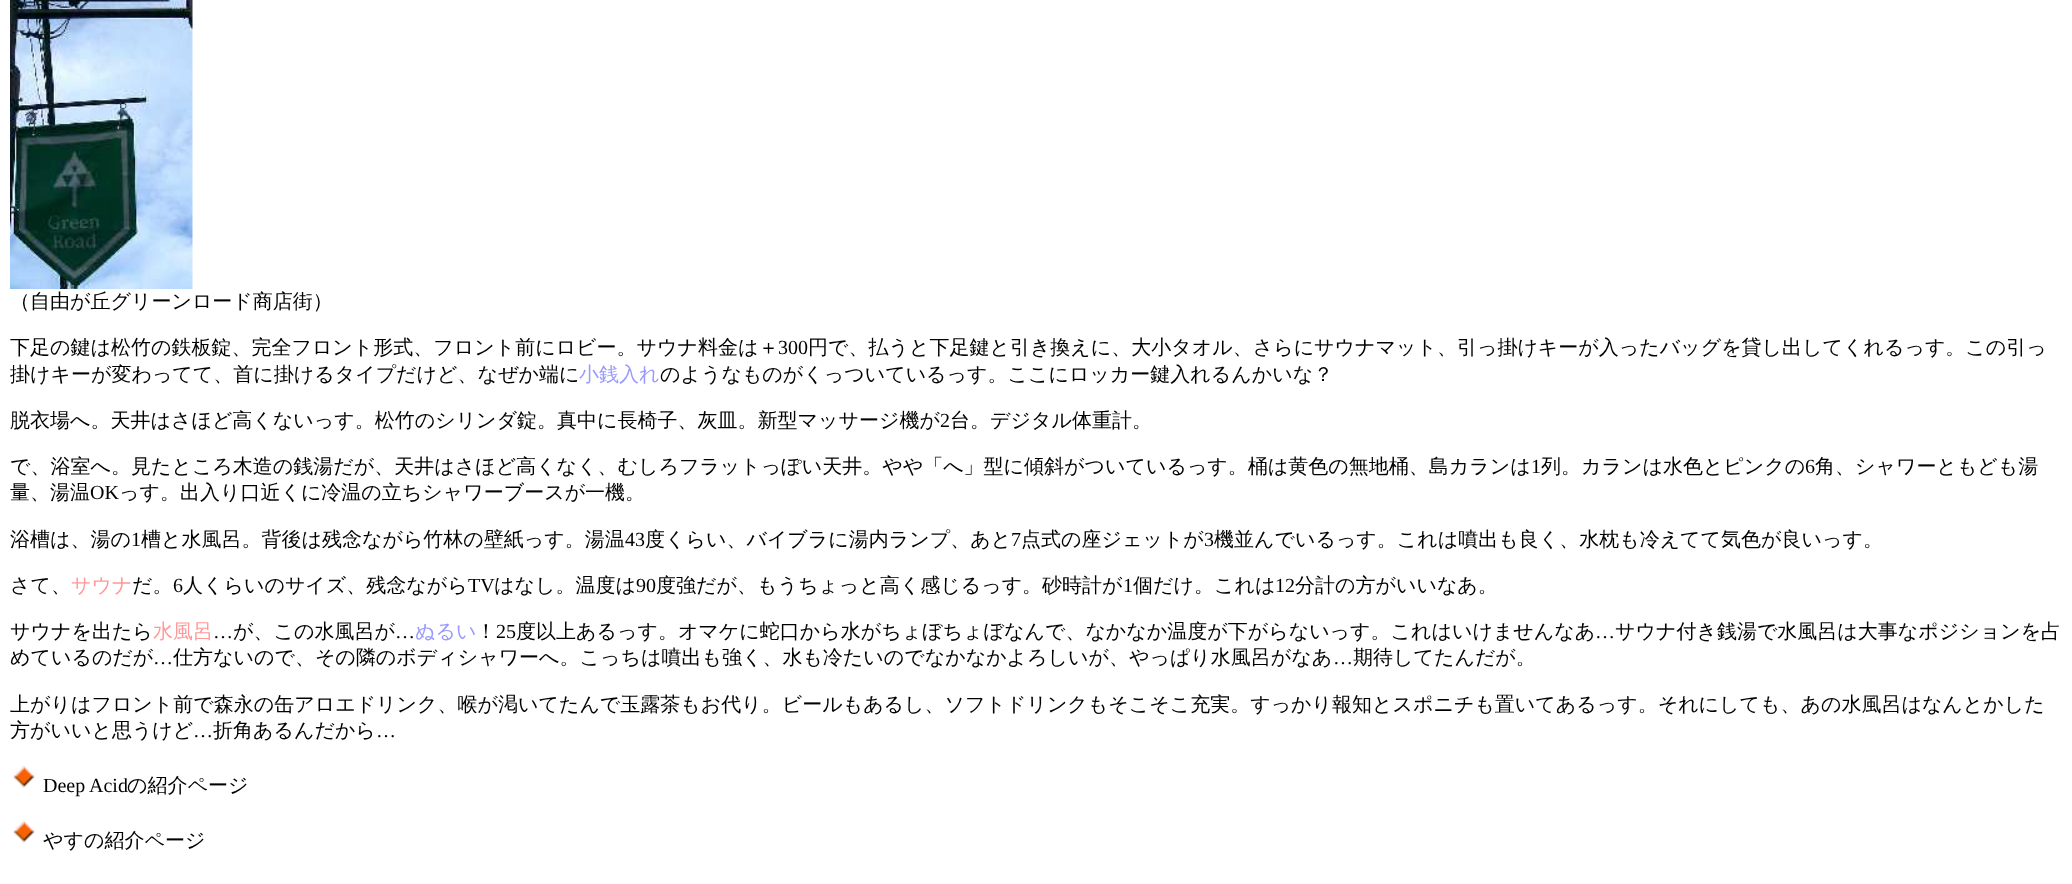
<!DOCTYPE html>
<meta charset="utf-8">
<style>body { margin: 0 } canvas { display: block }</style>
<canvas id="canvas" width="2072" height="884"></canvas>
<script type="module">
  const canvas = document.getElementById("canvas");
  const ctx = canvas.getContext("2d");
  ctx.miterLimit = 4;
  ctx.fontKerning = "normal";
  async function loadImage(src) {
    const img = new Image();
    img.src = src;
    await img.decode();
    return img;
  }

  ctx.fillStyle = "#ffffff";
  ctx.fillRect(0, 0, 2072, 884);
  ctx.drawImage(await loadImage("img1.png"), 10, 0, 183, 289);
  ctx.font = "500 20px WenQuanYi Zen Hei";
  ctx.fillStyle = "#000000";
  ctx.fillText("（自由が丘グリーンロード商店街）", 10, 308);
  ctx.fillText("下足の鍵は松竹の鉄板錠、完全フロント形式、フロント前にロビー。サウナ料金は＋", 10, 354);
  ctx.font = "20px Liberation Serif";
  ctx.fillText("300", 778, 354);
  ctx.font = "500 20px WenQuanYi Zen Hei";
  ctx.fillText("円で、払うと下足鍵と引き換えに、大小タオル、さらにサウナマット、引っ掛けキーが入ったバッグを貸し出してくれるっす。この引っ", 808, 354);
  ctx.fillText("掛けキーが変わってて、首に掛けるタイプだけど、なぜか端に", 10, 381);
  ctx.fillStyle = "#9999ff";
  ctx.fillText("小銭入れ", 579, 381);
  ctx.fillStyle = "#000000";
  ctx.fillText("のようなものがくっついているっす。ここにロッカー鍵入れるんかいな？", 660, 381);
  ctx.fillText("脱衣場へ。天井はさほど高くないっす。松竹のシリンダ錠。真中に長椅子、灰皿。新型マッサージ機が", 10, 427);
  ctx.font = "20px Liberation Serif";
  ctx.fillText("2", 940, 427);
  ctx.font = "500 20px WenQuanYi Zen Hei";
  ctx.fillText("台。デジタル体重計。", 950, 427);
  ctx.fillText("で、浴室へ。見たところ木造の銭湯だが、天井はさほど高くなく、むしろフラットっぽい天井。やや「へ」型に傾斜がついているっす。桶は黄色の無地桶、島カランは", 10, 473);
  ctx.font = "20px Liberation Serif";
  ctx.fillText("1", 1531, 473);
  ctx.font = "500 20px WenQuanYi Zen Hei";
  ctx.fillText("列。カランは水色とピンクの", 1541, 473);
  ctx.font = "20px Liberation Serif";
  ctx.fillText("6", 1805, 473);
  ctx.font = "500 20px WenQuanYi Zen Hei";
  ctx.fillText("角、シャワーともども湯", 1815, 473);
  ctx.fillText("量、湯温", 10, 499);
  ctx.font = "20px Liberation Serif";
  ctx.fillText("OK", 90, 499);
  ctx.font = "500 20px WenQuanYi Zen Hei";
  ctx.fillText("っす。出入り口近くに冷温の立ちシャワーブースが一機。", 119, 499);
  ctx.fillText("浴槽は、湯の", 10, 546);
  ctx.font = "20px Liberation Serif";
  ctx.fillText("1", 131, 546);
  ctx.font = "500 20px WenQuanYi Zen Hei";
  ctx.fillText("槽と水風呂。背後は残念ながら竹林の壁紙っす。湯温", 141, 546);
  ctx.font = "20px Liberation Serif";
  ctx.fillText("43", 625, 546);
  ctx.font = "500 20px WenQuanYi Zen Hei";
  ctx.fillText("度くらい、バイブラに湯内ランプ、あと", 645, 546);
  ctx.font = "20px Liberation Serif";
  ctx.fillText("7", 1011, 546);
  ctx.font = "500 20px WenQuanYi Zen Hei";
  ctx.fillText("点式の座ジェットが", 1021, 546);
  ctx.font = "20px Liberation Serif";
  ctx.fillText("3", 1204, 546);
  ctx.font = "500 20px WenQuanYi Zen Hei";
  ctx.fillText("機並んでいるっす。これは噴出も良く、水枕も冷えてて気色が良いっす。", 1214, 546);
  ctx.fillText("さて、", 10, 592);
  ctx.fillStyle = "#ff9999";
  ctx.fillText("サウナ", 71, 592);
  ctx.fillStyle = "#000000";
  ctx.fillText("だ。", 132, 592);
  ctx.font = "20px Liberation Serif";
  ctx.fillText("6", 173, 592);
  ctx.font = "500 20px WenQuanYi Zen Hei";
  ctx.fillText("人くらいのサイズ、残念ながら", 183, 592);
  ctx.font = "20px Liberation Serif";
  ctx.fillText("TV", 468, 592);
  ctx.font = "500 20px WenQuanYi Zen Hei";
  ctx.fillText("はなし。温度は", 494, 592);
  ctx.font = "20px Liberation Serif";
  ctx.fillText("90", 636, 592);
  ctx.font = "500 20px WenQuanYi Zen Hei";
  ctx.fillText("度強だが、もうちょっと高く感じるっす。砂時計が", 656, 592);
  ctx.font = "20px Liberation Serif";
  ctx.fillText("1", 1123, 592);
  ctx.font = "500 20px WenQuanYi Zen Hei";
  ctx.fillText("個だけ。これは", 1133, 592);
  ctx.font = "20px Liberation Serif";
  ctx.fillText("12", 1275, 592);
  ctx.font = "500 20px WenQuanYi Zen Hei";
  ctx.fillText("分計の方がいいなあ。", 1295, 592);
  ctx.fillText("サウナを出たら", 10, 638);
  ctx.fillStyle = "#ff9999";
  ctx.fillText("水風呂", 153, 638);
  ctx.font = "20px Liberation Serif";
  ctx.fillStyle = "#000000";
  ctx.fillText("…", 213, 638);
  ctx.font = "500 20px WenQuanYi Zen Hei";
  ctx.fillText("が、この水風呂が", 233, 638);
  ctx.font = "20px Liberation Serif";
  ctx.fillText("…", 395, 638);
  ctx.font = "500 20px WenQuanYi Zen Hei";
  ctx.fillStyle = "#9999ff";
  ctx.fillText("ぬるい", 415, 638);
  ctx.fillStyle = "#000000";
  ctx.fillText("！", 476, 638);
  ctx.font = "20px Liberation Serif";
  ctx.fillText("25", 496, 638);
  ctx.font = "500 20px WenQuanYi Zen Hei";
  ctx.fillText("度以上あるっす。オマケに蛇口から水がちょぼちょぼなんで、なかなか温度が下がらないっす。これはいけませんなあ", 516, 638);
  ctx.font = "20px Liberation Serif";
  ctx.fillText("…", 1595, 638);
  ctx.font = "500 20px WenQuanYi Zen Hei";
  ctx.fillText("サウナ付き銭湯で水風呂は大事なポジションを占", 1615, 638);
  ctx.fillText("めているのだが", 10, 664);
  ctx.font = "20px Liberation Serif";
  ctx.fillText("…", 153, 664);
  ctx.font = "500 20px WenQuanYi Zen Hei";
  ctx.fillText("仕方ないので、その隣のボディシャワーへ。こっちは噴出も強く、水も冷たいのでなかなかよろしいが、やっぱり水風呂がなあ", 173, 664);
  ctx.font = "20px Liberation Serif";
  ctx.fillText("…", 1333, 664);
  ctx.font = "500 20px WenQuanYi Zen Hei";
  ctx.fillText("期待してたんだが。", 1353, 664);
  ctx.fillText("上がりはフロント前で森永の缶アロエドリンク、喉が渇いてたんで玉露茶もお代り。ビールもあるし、ソフトドリンクもそこそこ充実。すっかり報知とスポニチも置いてあるっす。それにしても、あの水風呂はなんとかした", 10, 711);
  ctx.fillText("方がいいと思うけど", 10, 737);
  ctx.font = "20px Liberation Serif";
  ctx.fillText("…", 193, 737);
  ctx.font = "500 20px WenQuanYi Zen Hei";
  ctx.fillText("折角あるんだから", 213, 737);
  ctx.font = "20px Liberation Serif";
  ctx.fillText("…", 376, 737);
  ctx.drawImage(await loadImage("img2.png"), 13, 765, 22, 23);
  ctx.fillText("Deep", 43, 792);
  ctx.fillText("Acid", 89, 792);
  ctx.font = "500 20px WenQuanYi Zen Hei";
  ctx.fillText("の紹介ページ", 127, 792);
  ctx.drawImage(await loadImage("img2.png"), 13, 820, 22, 23);
  ctx.fillText("やすの紹介ページ", 43, 847);
</script>
